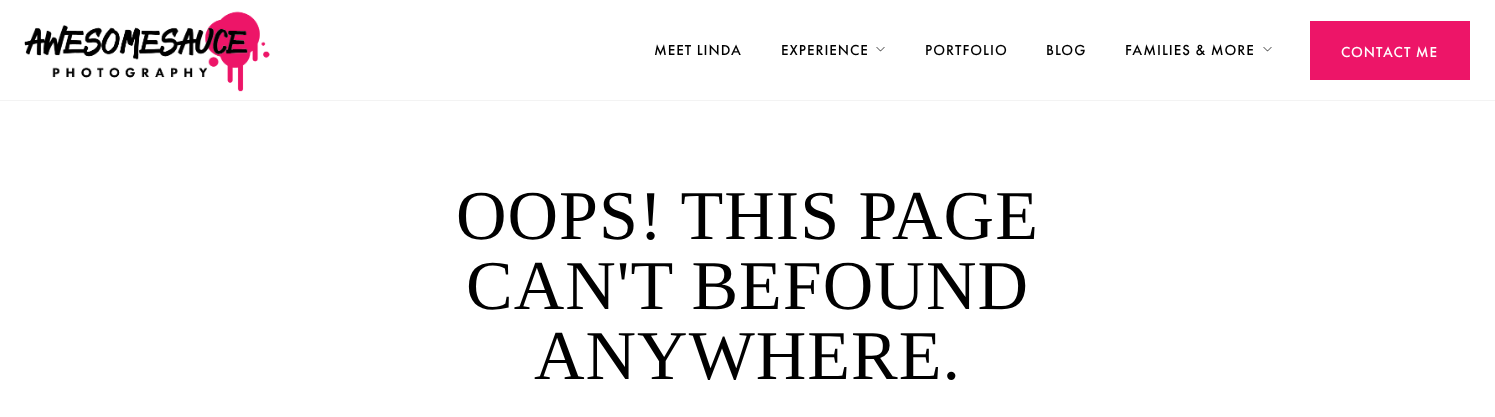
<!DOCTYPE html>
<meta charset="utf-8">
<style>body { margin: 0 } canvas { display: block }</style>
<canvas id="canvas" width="1495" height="417"></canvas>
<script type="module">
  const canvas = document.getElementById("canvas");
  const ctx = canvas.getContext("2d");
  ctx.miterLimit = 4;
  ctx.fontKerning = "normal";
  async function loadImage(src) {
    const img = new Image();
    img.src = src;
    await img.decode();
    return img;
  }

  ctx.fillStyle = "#ffffff";
  ctx.fillRect(0, 0, 1495, 417);
  ctx.fillStyle = "#f3f3f3";
  ctx.fillRect(0, 100, 1495, 1);
  ctx.drawImage(await loadImage("img1.png"), 24, 11, 246, 81);
  ctx.letterSpacing = "1px";
  ctx.font = "500 15px Futura PT";
  ctx.fillStyle = "#000000";
  ctx.fillText("MEET LINDA", 654, 55);
  ctx.fillText("EXPERIENCE", 781, 55);
  ctx.drawImage(await loadImage("img2.png"), 876, 47, 9, 5);
  ctx.fillText("PORTFOLIO", 925, 55);
  ctx.fillText("BLOG", 1046, 55);
  ctx.fillText("FAMILIES & MORE", 1125, 55);
  ctx.drawImage(await loadImage("img2.png"), 1263, 47, 9, 5);
  ctx.fillStyle = "#ed1568";
  ctx.fillRect(1310, 21, 160, 59);
  ctx.fillStyle = "#ffffff";
  ctx.fillText("CONTACT ME", 1341, 57);
  ctx.font = "70px Liberation Serif";
  ctx.fillStyle = "#000000";
  ctx.fillText("OOPS! THIS PAGE", 456, 239);
  ctx.fillText("CAN'T BEFOUND", 466, 309);
  ctx.fillText("ANYWHERE.", 534, 379);
</script>
